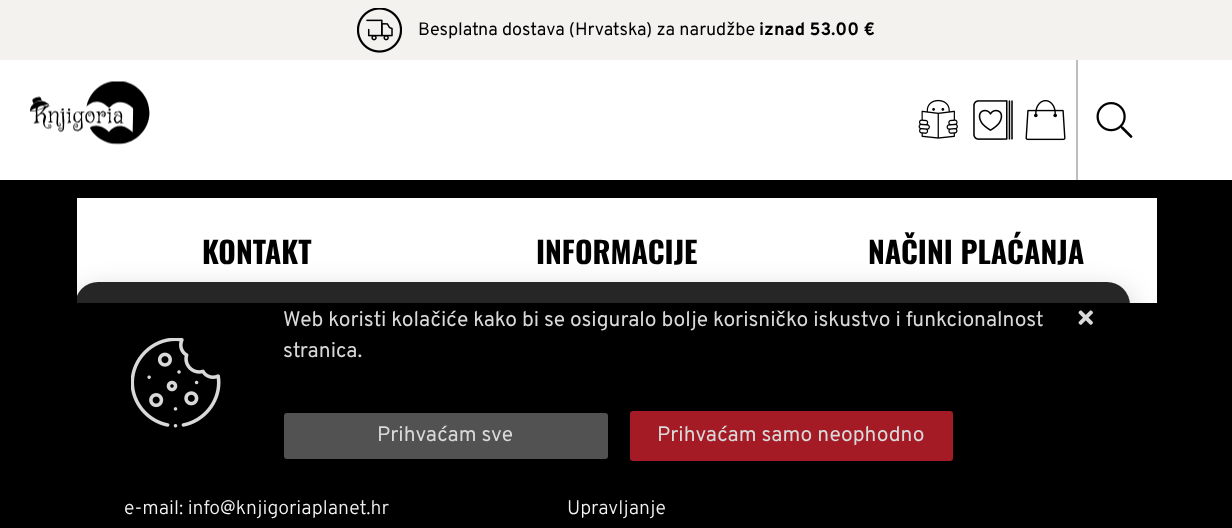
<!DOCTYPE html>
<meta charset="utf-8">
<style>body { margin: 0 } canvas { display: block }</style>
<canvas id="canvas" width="1232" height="528"></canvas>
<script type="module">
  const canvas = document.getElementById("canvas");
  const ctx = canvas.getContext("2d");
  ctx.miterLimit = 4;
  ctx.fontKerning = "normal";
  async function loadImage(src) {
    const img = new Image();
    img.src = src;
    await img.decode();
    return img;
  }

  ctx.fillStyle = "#000000";
  ctx.fillRect(0, 0, 1232, 528);
  ctx.fillStyle = "#ffffff";
  ctx.fillRect(0, 60, 1232, 120);
  ctx.fillStyle = "#f4f2ef";
  ctx.fillRect(0, 0, 1232, 60);
  ctx.drawImage(await loadImage("img1.png"), 357, 8, 45, 45);
  ctx.font = "18px Overpass";
  ctx.fillStyle = "#000000";
  ctx.fillText("Besplatna dostava (Hrvatska) za narudžbe", 418, 35);
  ctx.font = "bold 18px Overpass";
  ctx.fillText("iznad 53.00 €", 759, 35);
  ctx.drawImage(await loadImage("img2.png"), 30, 81, 120, 64);
  ctx.drawImage(await loadImage("img3.png"), 918, 99, 40, 40);
  ctx.drawImage(await loadImage("img4.png"), 973, 100, 40, 40);
  ctx.drawImage(await loadImage("img5.png"), 1025, 100, 41, 41);
  ctx.fillStyle = "#bcbcbc";
  ctx.fillRect(1076, 60, 2, 120);
  ctx.drawImage(await loadImage("img6.png"), 1096, 102, 37, 36);
  ctx.fillStyle = "#ffffff";
  ctx.fillRect(77, 198, 1080, 105);
  ctx.font = "bold 30px Oswald";
  ctx.fillStyle = "#000000";
  ctx.fillText("KONTAKT", 202, 264);
  ctx.font = "300 19.5px Overpass";
  ctx.fillStyle = "#ffffff";
  ctx.fillText("e-mail: info@knjigoriaplanet.hr", 124, 514);
  ctx.font = "bold 30px Oswald";
  ctx.fillStyle = "#000000";
  ctx.fillText("INFORMACIJE", 536, 264);
  ctx.font = "300 19.5px Overpass";
  ctx.fillStyle = "#ffffff";
  ctx.fillText("Upravljanje", 567, 514);
  ctx.font = "bold 30px Oswald";
  ctx.fillStyle = "#000000";
  ctx.fillText("NAČINI PLAĆANJA", 868, 264);
  ctx.save();
  ctx.beginPath();
  ctx.moveTo(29, 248);
  ctx.lineTo(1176, 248);
  ctx.lineTo(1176, 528);
  ctx.lineTo(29, 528);
  ctx.closePath();
  ctx.moveTo(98, 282);
  ctx.lineTo(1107, 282);
  ctx.bezierCurveTo(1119.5, 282, 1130, 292.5, 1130, 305);
  ctx.lineTo(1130, 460);
  ctx.bezierCurveTo(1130, 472.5, 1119.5, 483, 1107, 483);
  ctx.lineTo(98, 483);
  ctx.bezierCurveTo(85.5, 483, 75, 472.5, 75, 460);
  ctx.lineTo(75, 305);
  ctx.bezierCurveTo(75, 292.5, 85.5, 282, 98, 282);
  ctx.closePath();
  ctx.clip("evenodd");
  ctx.fillStyle = "rgba(0, 0, 0, 0.26)";
  ctx.filter = "blur(15px)";
  ctx.beginPath();
  ctx.roundRect(75, 294, 1055, 201, 23);
  ctx.fill();
  ctx.filter = "none";
  ctx.restore();
  ctx.fillStyle = "rgba(0, 0, 0, 0.85)";
  ctx.beginPath();
  ctx.roundRect(75, 282, 1055, 201, 23);
  ctx.fill();
  ctx.drawImage(await loadImage("img7.png"), 131, 338, 90, 90);
  ctx.font = "21px Overpass";
  ctx.fillStyle = "#d9d9d9";
  ctx.fillText("Web koristi kolačiće kako bi se osiguralo bolje korisničko iskustvo i funkcionalnost", 283, 326);
  ctx.fillText("stranica.", 283, 357);
  ctx.drawImage(await loadImage("img8.png"), 1078, 310, 15, 15);
  ctx.fillStyle = "rgba(96, 96, 96, 0.85)";
  ctx.beginPath();
  ctx.roundRect(284, 413, 324, 46, 3);
  ctx.fill();
  ctx.fillStyle = "#d9d9d9";
  ctx.fillText("Prihvaćam sve", 377, 441);
  ctx.fillStyle = "rgba(193, 31, 43, 0.85)";
  ctx.beginPath();
  ctx.roundRect(630, 411, 323, 50, 3);
  ctx.fill();
  ctx.fillStyle = "#d9d9d9";
  ctx.fillText("Prihvaćam samo neophodno", 657, 441);
</script>
